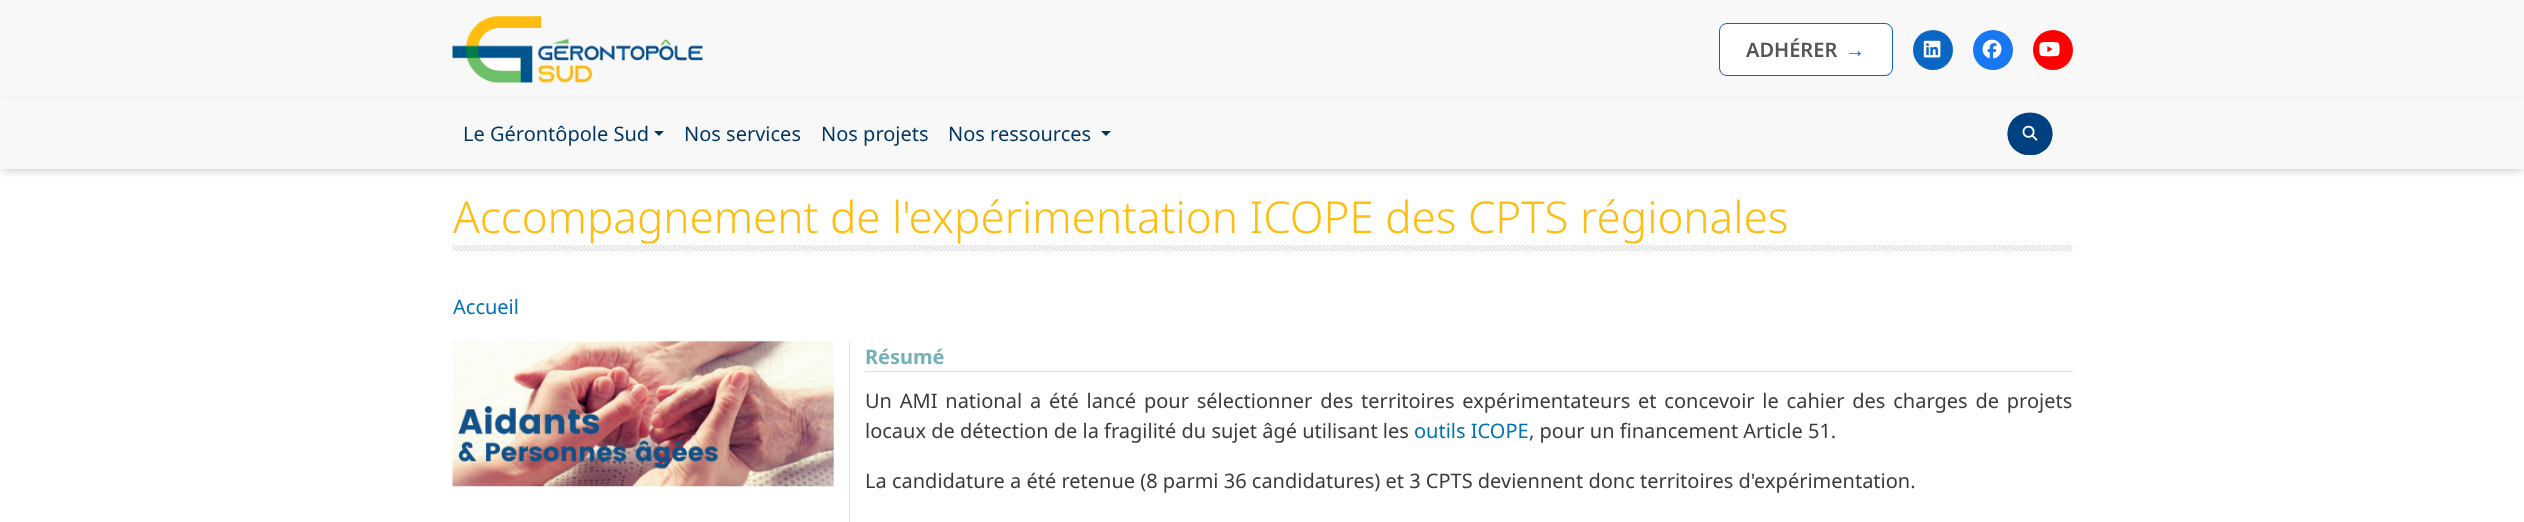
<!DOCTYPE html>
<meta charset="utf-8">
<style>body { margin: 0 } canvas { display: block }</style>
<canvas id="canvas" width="2524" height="522"></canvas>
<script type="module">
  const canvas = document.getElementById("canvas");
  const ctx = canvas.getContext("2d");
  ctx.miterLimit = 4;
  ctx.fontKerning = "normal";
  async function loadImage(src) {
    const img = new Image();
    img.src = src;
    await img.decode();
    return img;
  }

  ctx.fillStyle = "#ffffff";
  ctx.fillRect(0, 0, 2524, 522);
  ctx.fillStyle = "#f8f8f8";
  ctx.fillRect(0, 0, 2524, 99);
  ctx.drawImage(await loadImage("img1.png"), 452, 16, 251, 67);
  ctx.fillStyle = "#ffffff";
  ctx.beginPath();
  ctx.roundRect(1719.5, 23.5, 173, 52, 7.5);
  ctx.fill();
  ctx.strokeStyle = "#0b5ed7";
  ctx.stroke();
  ctx.font = "600 20px Noto Sans";
  ctx.fillStyle = "#555555";
  ctx.fillText("ADHÉRER", 1746, 57);
  ctx.font = "bold 20px Liberation Sans";
  ctx.fillStyle = "#0b5ed7";
  ctx.fillText("→", 1845, 57);
  ctx.fillStyle = "#0a66c2";
  ctx.beginPath();
  ctx.arc(1933, 50, 20, 0, Math.PI * 2);
  ctx.fill();
  ctx.drawImage(await loadImage("img2.png"), 1923, 40, 18, 18);
  ctx.fillStyle = "#1877f2";
  ctx.beginPath();
  ctx.arc(1993, 50, 20, 0, Math.PI * 2);
  ctx.fill();
  ctx.drawImage(await loadImage("img3.png"), 1982, 39, 20, 20);
  ctx.fillStyle = "#ff0000";
  ctx.beginPath();
  ctx.arc(2053, 50, 20, 0, Math.PI * 2);
  ctx.fill();
  ctx.drawImage(await loadImage("img4.png"), 2039, 42, 21, 15);
  ctx.fillStyle = "rgba(17, 17, 17, 0.3)";
  ctx.filter = "blur(5px)";
  ctx.beginPath();
  ctx.rect(3, 104, 2520, 65);
  ctx.fill();
  ctx.filter = "none";
  ctx.fillStyle = "#f8f8f8";
  ctx.fillRect(0, 99, 2524, 70);
  ctx.font = "20px Noto Sans";
  ctx.fillStyle = "#00355f";
  ctx.fillText("Le Gérontôpole Sud", 463, 141);
  ctx.beginPath();
  ctx.moveTo(654, 131);
  ctx.lineTo(664, 131);
  ctx.lineTo(659, 136);
  ctx.closePath();
  ctx.fill();
  ctx.fillText("Nos services", 684, 141);
  ctx.fillText("Nos projets", 821, 141);
  ctx.fillText("Nos ressources", 948, 141);
  ctx.beginPath();
  ctx.moveTo(1101, 131);
  ctx.lineTo(1111, 131);
  ctx.lineTo(1106, 136);
  ctx.closePath();
  ctx.fill();
  ctx.fillStyle = "#004080";
  ctx.beginPath();
  ctx.ellipse(2030, 134, 22.5, 21, 0, 0, Math.PI * 2);
  ctx.fill();
  ctx.beginPath();
  ctx.moveTo(2030, 113);
  ctx.bezierCurveTo(2059, 113, 2059, 154.5, 2030, 154.5);
  ctx.bezierCurveTo(2001, 154.5, 2001, 113, 2030, 113);
  ctx.closePath();
  ctx.strokeStyle = "#004080";
  ctx.lineWidth = 1.2;
  ctx.stroke();
  ctx.drawImage(await loadImage("img5.png"), 2022, 125, 16, 16);
  ctx.drawImage(await loadImage("img6.png"), 452, 245, 1621, 7);
  ctx.font = "300 44px Noto Sans";
  ctx.fillStyle = "#febd11";
  ctx.fillText("Accompagnement de l'expérimentation ICOPE des CPTS régionales", 453, 233);
  ctx.font = "20px Noto Sans";
  ctx.fillStyle = "#0071b3";
  ctx.fillText("Accueil", 453, 314);
  ctx.fillStyle = "#dee2e6";
  ctx.fillRect(849, 341, 1, 181);
  ctx.drawImage(await loadImage("img7.png"), 452, 341, 382, 146);
  ctx.fillStyle = "#dddddd";
  ctx.fillRect(865, 371, 1208, 1);
  ctx.font = "bold 20px Noto Sans";
  ctx.fillStyle = "#76b0b7";
  ctx.fillText("Résumé", 865, 364);
  ctx.wordSpacing = "2.6px";
  ctx.font = "20px Noto Sans";
  ctx.fillStyle = "#3b3b3b";
  ctx.fillText("Un AMI national a été lancé pour sélectionner des territoires expérimentateurs et concevoir le cahier des charges de projets", 865, 408);
  ctx.wordSpacing = "0px";
  ctx.fillText("locaux de détection de la fragilité du sujet âgé utilisant les", 865, 438);
  ctx.fillStyle = "#0071b3";
  ctx.fillText("outils ICOPE", 1414, 438);
  ctx.fillStyle = "#3b3b3b";
  ctx.fillText(", pour un financement Article 51.", 1529, 438);
  ctx.fillText("La candidature a été retenue (8 parmi 36 candidatures) et 3 CPTS deviennent donc territoires d'expérimentation.", 865, 488);
</script>
